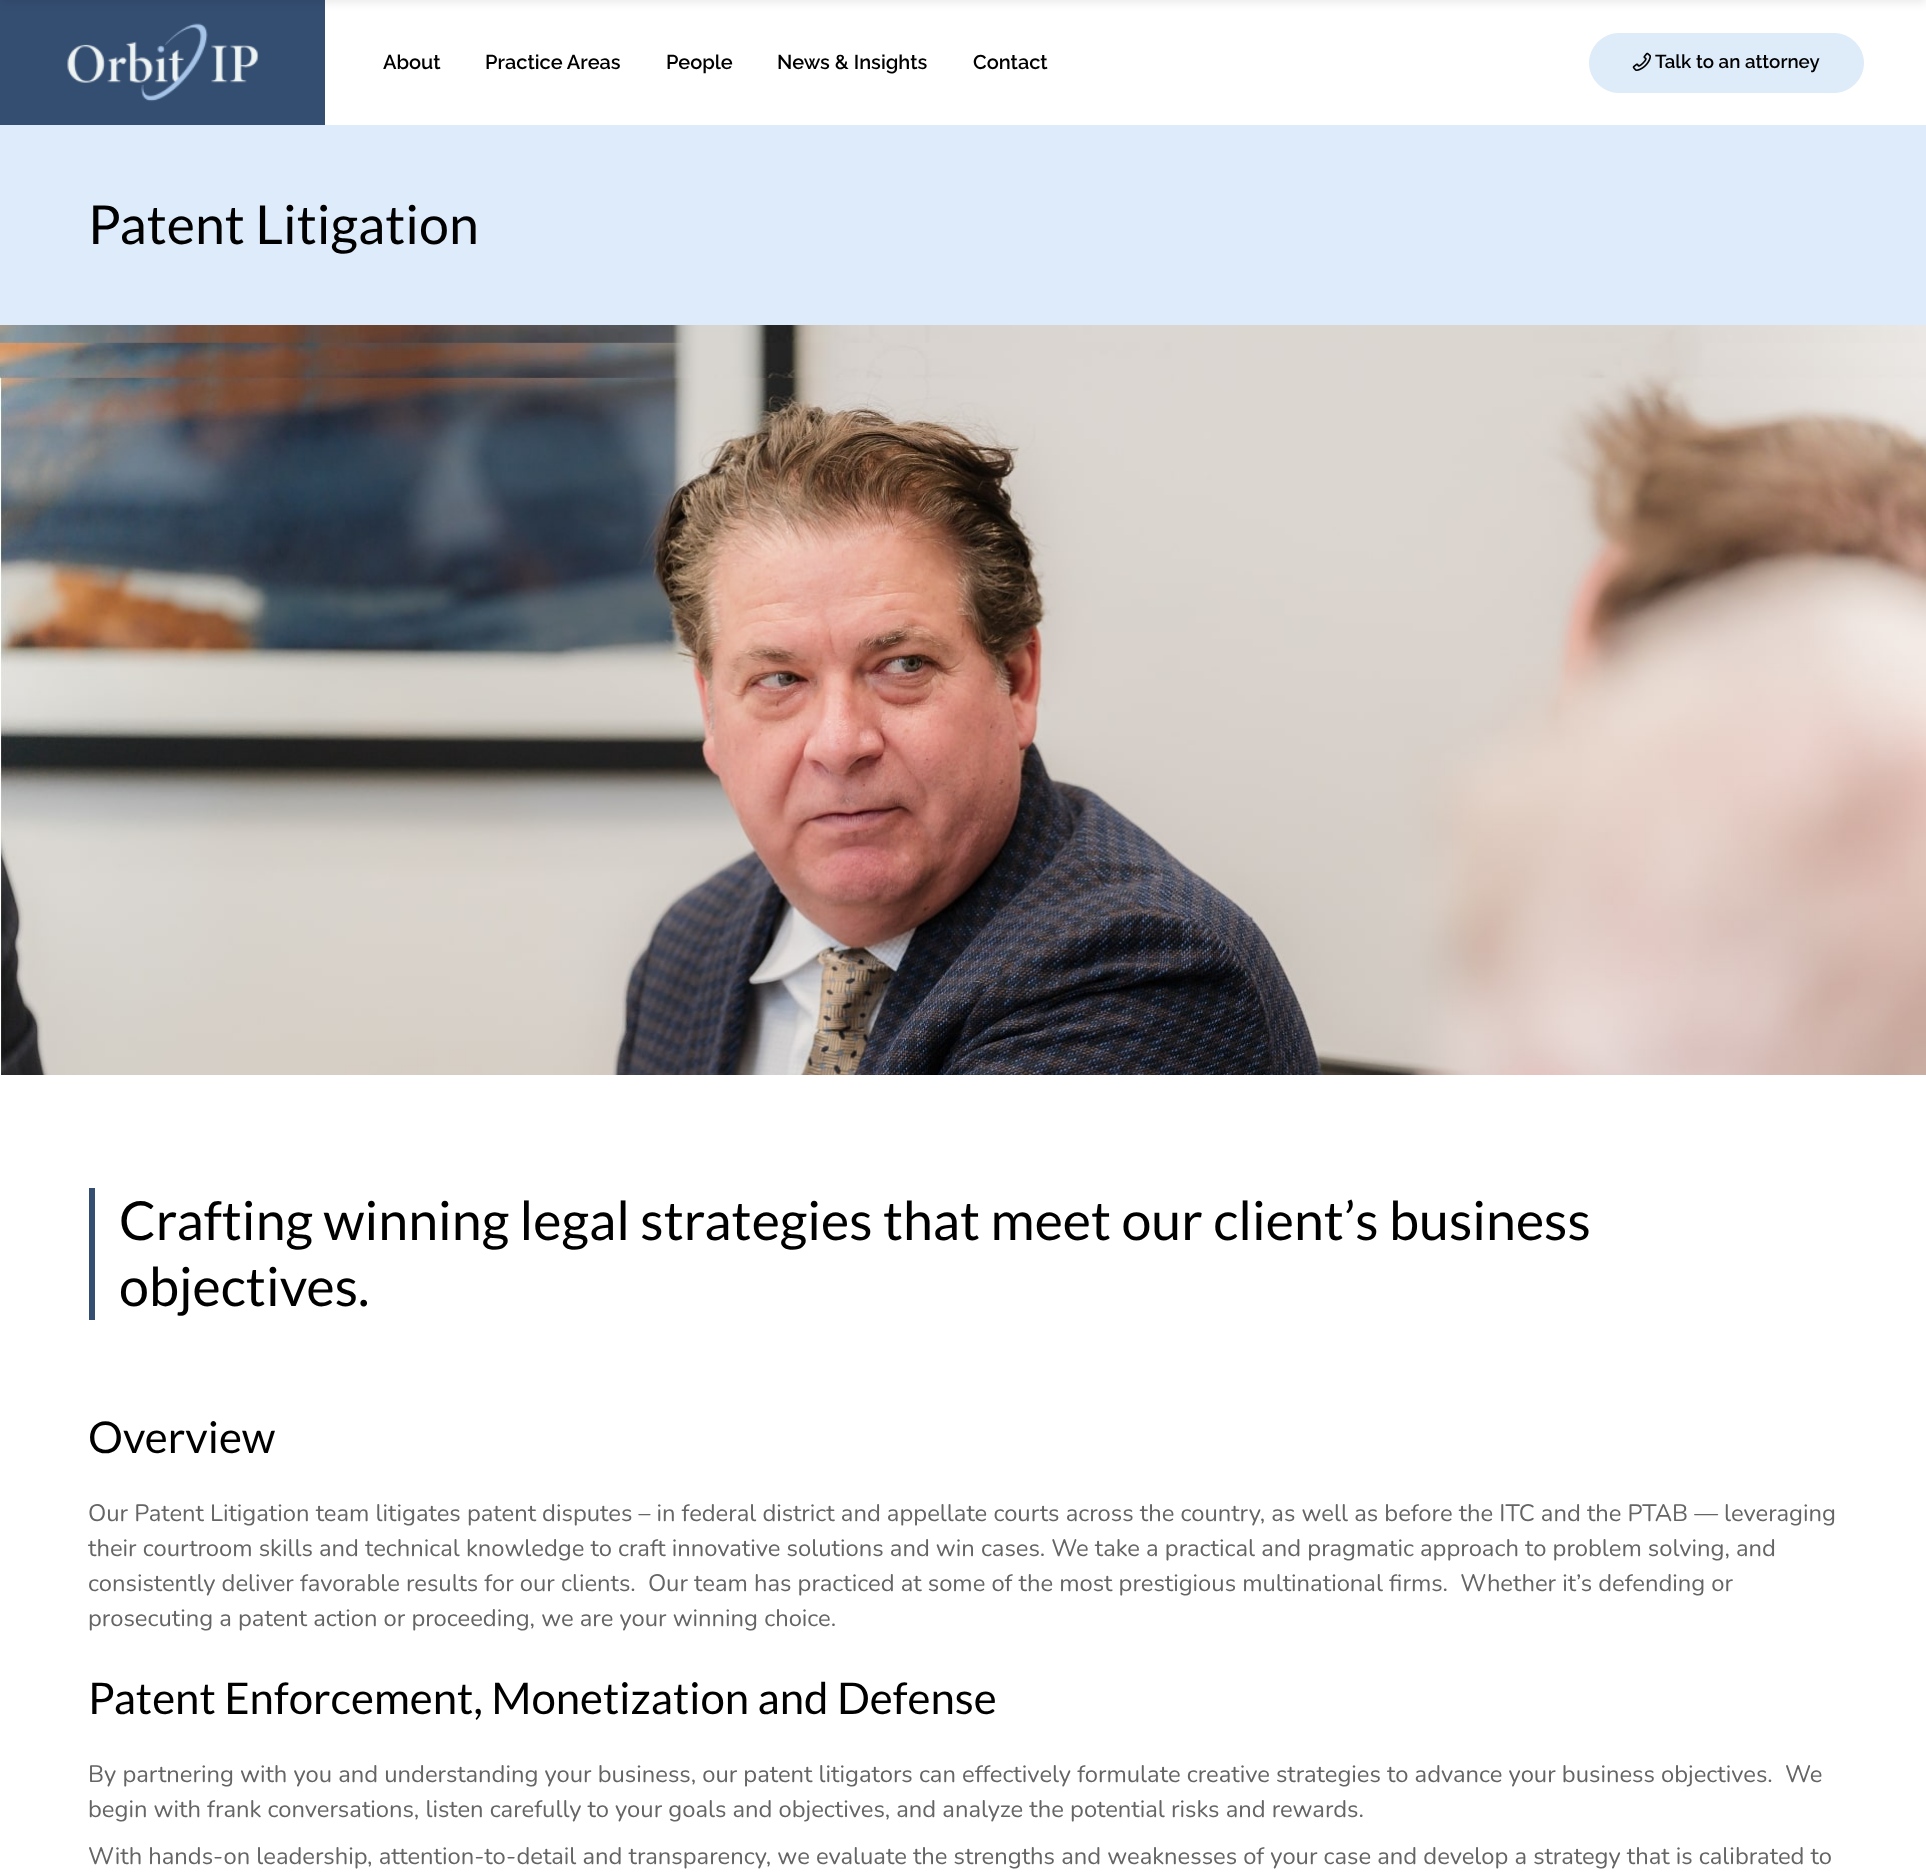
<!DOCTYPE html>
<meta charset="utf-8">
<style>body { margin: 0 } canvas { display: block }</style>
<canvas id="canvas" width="1926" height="1875"></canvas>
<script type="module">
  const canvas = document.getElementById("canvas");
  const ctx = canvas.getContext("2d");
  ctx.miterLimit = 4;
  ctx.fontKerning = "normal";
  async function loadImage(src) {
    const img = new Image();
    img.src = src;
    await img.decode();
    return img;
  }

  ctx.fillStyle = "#ffffff";
  ctx.fillRect(0, 0, 1926, 1875);
  ctx.drawImage(await loadImage("img1.png"), 0, 0, 325, 125);
  ctx.fillStyle = "rgba(0, 0, 0, 0.08)";
  ctx.filter = "blur(4px)";
  ctx.beginPath();
  ctx.rect(0, -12, 1926, 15);
  ctx.fill();
  ctx.filter = "none";
  ctx.font = "600 20px Raleway";
  ctx.fillStyle = "#000000";
  ctx.fillText("About", 383, 69);
  ctx.fillText("Practice Areas", 485, 69);
  ctx.fillText("People", 666, 69);
  ctx.fillText("News & Insights", 777, 69);
  ctx.fillText("Contact", 973, 69);
  ctx.fillStyle = "#deebf9";
  ctx.beginPath();
  ctx.roundRect(1589.5, 33.5, 274, 59, 29.5);
  ctx.fill();
  ctx.strokeStyle = "#deebf9";
  ctx.stroke();
  ctx.drawImage(await loadImage("img2.png"), 1632, 52, 19, 19);
  ctx.font = "600 18.75px Raleway";
  ctx.fillStyle = "#000000";
  ctx.fillText("Talk to an attorney", 1655, 68);
  ctx.fillStyle = "#deebfa";
  ctx.fillRect(0, 125, 1926, 200);
  ctx.font = "53.75px Lato";
  ctx.fillStyle = "#000000";
  ctx.fillText("Patent Litigation", 88, 244);
  ctx.drawImage(await loadImage("img3.png"), 0, 325, 1926, 750);
  ctx.fillStyle = "#344e72";
  ctx.fillRect(89, 1188, 6, 132);
  ctx.fillStyle = "#000000";
  ctx.fillText("Crafting winning legal strategies that meet our client’s business", 119, 1240);
  ctx.fillText("objectives.", 119, 1306);
  ctx.font = "43.75px Lato";
  ctx.fillText("Overview", 88, 1453);
  ctx.font = "23.75px Nunito";
  ctx.fillStyle = "#666565";
  ctx.fillText("Our Patent Litigation team litigates patent disputes – in federal district and appellate courts across the country, as well as before the ITC and the PTAB — leveraging", 88, 1521);
  ctx.fillText("their courtroom skills and technical knowledge to craft innovative solutions and win cases. We take a practical and pragmatic approach to problem solving, and", 88, 1556);
  ctx.fillText("consistently deliver favorable results for our clients.  Our team has practiced at some of the most prestigious multinational firms.  Whether it’s defending or", 88, 1591);
  ctx.fillText("prosecuting a patent action or proceeding, we are your winning choice.", 88, 1626);
  ctx.font = "43.75px Lato";
  ctx.fillStyle = "#000000";
  ctx.fillText("Patent Enforcement, Monetization and Defense", 88, 1714);
  ctx.font = "23.75px Nunito";
  ctx.fillStyle = "#666565";
  ctx.fillText("By partnering with you and understanding your business, our patent litigators can effectively formulate creative strategies to advance your business objectives.  We", 88, 1782);
  ctx.fillText("begin with frank conversations, listen carefully to your goals and objectives, and analyze the potential risks and rewards.", 88, 1817);
  ctx.fillText("With hands-on leadership, attention-to-detail and transparency, we evaluate the strengths and weaknesses of your case and develop a strategy that is calibrated to", 88, 1864);
</script>
